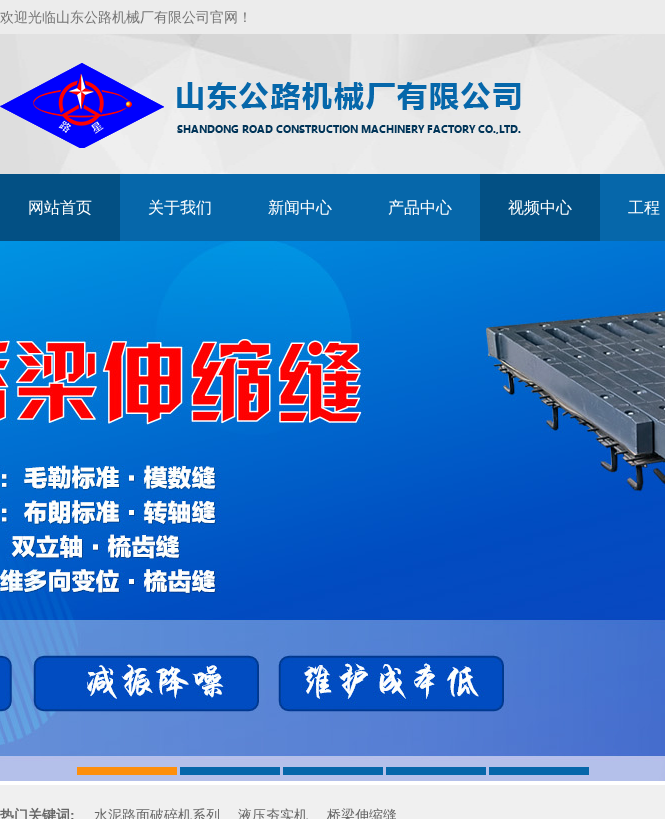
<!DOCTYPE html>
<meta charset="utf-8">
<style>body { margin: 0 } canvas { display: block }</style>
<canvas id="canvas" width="665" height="819"></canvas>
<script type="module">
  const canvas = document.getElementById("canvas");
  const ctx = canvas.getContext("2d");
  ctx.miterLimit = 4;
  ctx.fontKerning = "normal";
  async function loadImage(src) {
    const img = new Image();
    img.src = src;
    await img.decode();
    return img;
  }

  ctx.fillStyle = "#ffffff";
  ctx.fillRect(0, 0, 665, 819);
  ctx.drawImage(await loadImage("img1.png"), 0, 0, 665, 174);
  ctx.font = "500 14px WenQuanYi Zen Hei";
  ctx.fillStyle = "#747474";
  ctx.fillText("欢迎光临山东公路机械厂有限公司官网！", 0, 22);
  ctx.drawImage(await loadImage("img2.png"), 0, 63, 521, 85);
  ctx.fillStyle = "#035084";
  ctx.fillRect(0, 174, 120, 67);
  ctx.font = "500 16px WenQuanYi Zen Hei";
  ctx.fillStyle = "#ffffff";
  ctx.fillText("网站首页", 28, 213);
  ctx.fillStyle = "#0667aa";
  ctx.fillRect(120, 174, 360, 67);
  ctx.fillStyle = "#ffffff";
  ctx.fillText("关于我们", 148, 213);
  ctx.fillText("新闻中心", 268, 213);
  ctx.fillText("产品中心", 388, 213);
  ctx.fillStyle = "#035084";
  ctx.fillRect(480, 174, 120, 67);
  ctx.fillStyle = "#ffffff";
  ctx.fillText("视频中心", 508, 213);
  ctx.fillStyle = "#0667aa";
  ctx.fillRect(600, 174, 65, 67);
  ctx.fillStyle = "#ffffff";
  ctx.fillText("工程", 628, 213);
  ctx.drawImage(await loadImage("img3.png"), 0, 241, 665, 540);
  ctx.fillStyle = "#fe8f0c";
  ctx.fillRect(77, 767, 100, 8);
  ctx.fillStyle = "#0667aa";
  ctx.fillRect(180, 767, 100, 8);
  ctx.fillRect(283, 767, 100, 8);
  ctx.fillRect(386, 767, 100, 8);
  ctx.fillRect(489, 767, 100, 8);
  ctx.fillStyle = "#f0f0f0";
  ctx.fillRect(0, 785, 665, 34);
  ctx.font = "bold 14px WenQuanYi Zen Hei";
  ctx.fillStyle = "#666666";
  ctx.fillText("热门关键词", 0, 820);
  ctx.font = "bold 14px Liberation Sans";
  ctx.fillText(":", 70, 820);
  ctx.font = "500 14px WenQuanYi Zen Hei";
  ctx.fillText("水泥路面破碎机系列", 94, 820);
  ctx.fillText("液压夯实机", 238, 820);
  ctx.fillText("桥梁伸缩缝", 327, 820);
</script>
